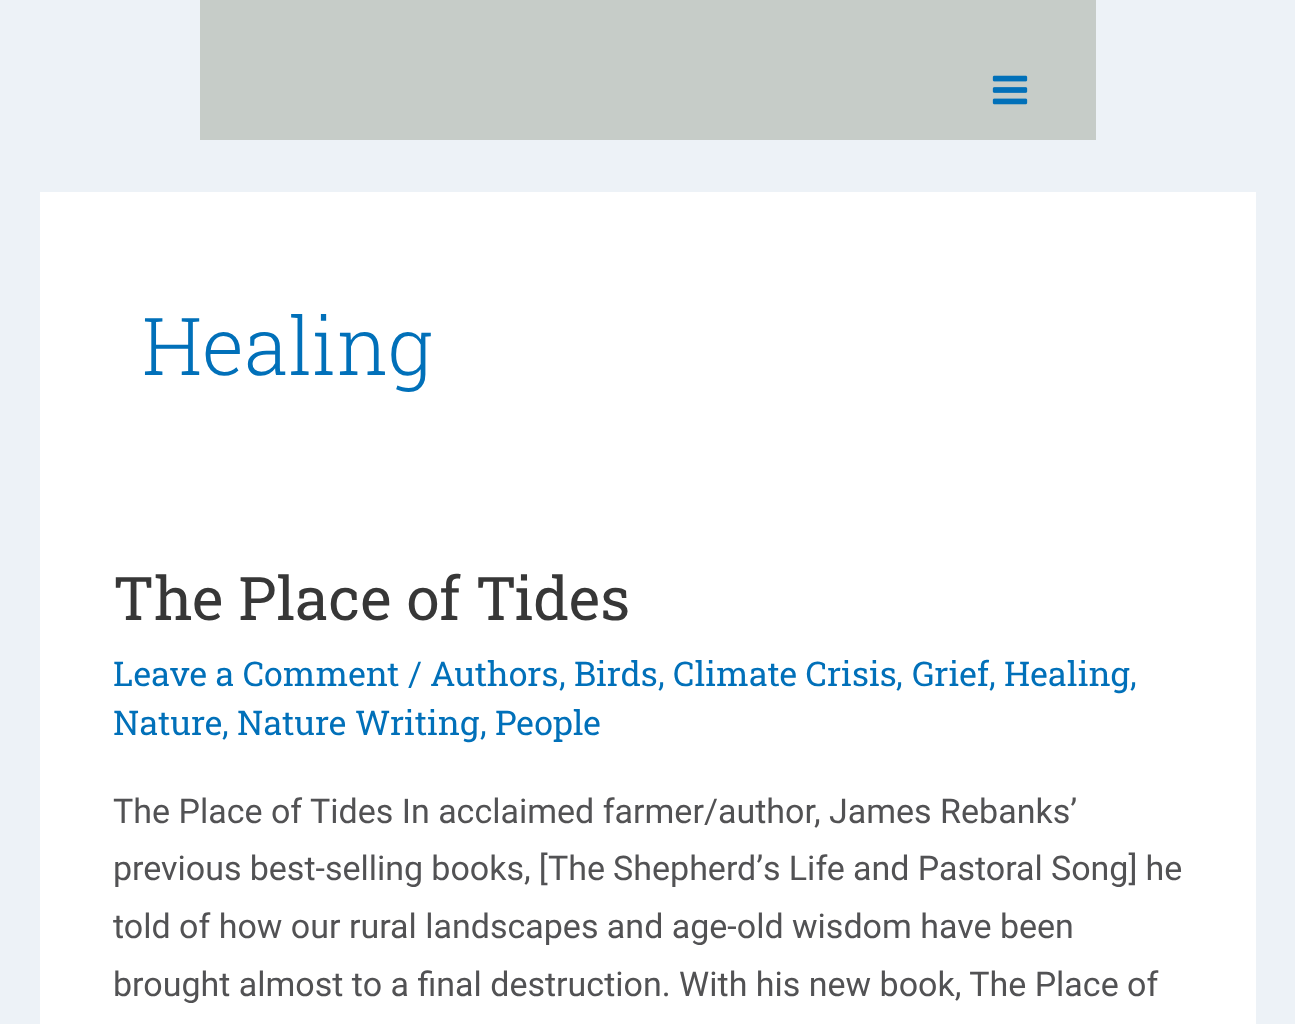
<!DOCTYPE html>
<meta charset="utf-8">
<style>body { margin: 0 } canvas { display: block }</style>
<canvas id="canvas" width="1295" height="1024"></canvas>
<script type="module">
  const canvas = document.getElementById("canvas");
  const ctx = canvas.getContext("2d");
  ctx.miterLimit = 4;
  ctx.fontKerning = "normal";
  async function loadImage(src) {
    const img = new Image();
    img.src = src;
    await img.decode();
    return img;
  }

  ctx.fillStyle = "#edf2f7";
  ctx.fillRect(0, 0, 1295, 1024);
  ctx.fillStyle = "#c6ccc8";
  ctx.fillRect(200, 0, 896, 140);
  ctx.drawImage(await loadImage("img1.png"), 992, 75, 36, 30);
  ctx.fillStyle = "#ffffff";
  ctx.fillRect(40, 192, 1216, 832);
  ctx.font = "300 80px Roboto Slab";
  ctx.fillStyle = "#0170b9";
  ctx.fillText("Healing", 142, 375);
  ctx.font = "60px Roboto Slab";
  ctx.fillStyle = "#373737";
  ctx.fillText("The Place of Tides", 113, 620);
  ctx.font = "34px Roboto Slab";
  ctx.fillStyle = "#0170b9";
  ctx.fillText("Leave a Comment", 113, 686);
  ctx.font = "34px Roboto";
  ctx.fillText("/", 408, 686);
  ctx.font = "34px Roboto Slab";
  ctx.fillText("Authors", 430, 686);
  ctx.font = "34px Roboto";
  ctx.fillText(",", 559, 686);
  ctx.font = "34px Roboto Slab";
  ctx.fillText("Birds", 574, 686);
  ctx.font = "34px Roboto";
  ctx.fillText(",", 658, 686);
  ctx.font = "34px Roboto Slab";
  ctx.fillText("Climate Crisis", 673, 686);
  ctx.font = "34px Roboto";
  ctx.fillText(",", 896, 686);
  ctx.font = "34px Roboto Slab";
  ctx.fillText("Grief", 912, 686);
  ctx.font = "34px Roboto";
  ctx.fillText(",", 989, 686);
  ctx.font = "34px Roboto Slab";
  ctx.fillText("Healing", 1004, 686);
  ctx.font = "34px Roboto";
  ctx.fillText(",", 1130, 686);
  ctx.font = "34px Roboto Slab";
  ctx.fillText("Nature", 113, 735);
  ctx.font = "34px Roboto";
  ctx.fillText(",", 222, 735);
  ctx.font = "34px Roboto Slab";
  ctx.fillText("Nature Writing", 237, 735);
  ctx.font = "34px Roboto";
  ctx.fillText(",", 480, 735);
  ctx.font = "34px Roboto Slab";
  ctx.fillText("People", 495, 735);
  ctx.font = "34px Roboto";
  ctx.fillStyle = "#525254";
  ctx.fillText("The Place of Tides In acclaimed farmer/author, James Rebanks’", 113, 823);
  ctx.wordSpacing = "-0.25px";
  ctx.fillText("previous best-selling books, [The Shepherd’s Life and Pastoral Song] he", 113, 880);
  ctx.wordSpacing = "0px";
  ctx.fillText("told of how our rural landscapes and age-old wisdom have been", 113, 938);
  ctx.fillText("brought almost to a final destruction. With his new book, The Place of", 113, 996);
</script>
